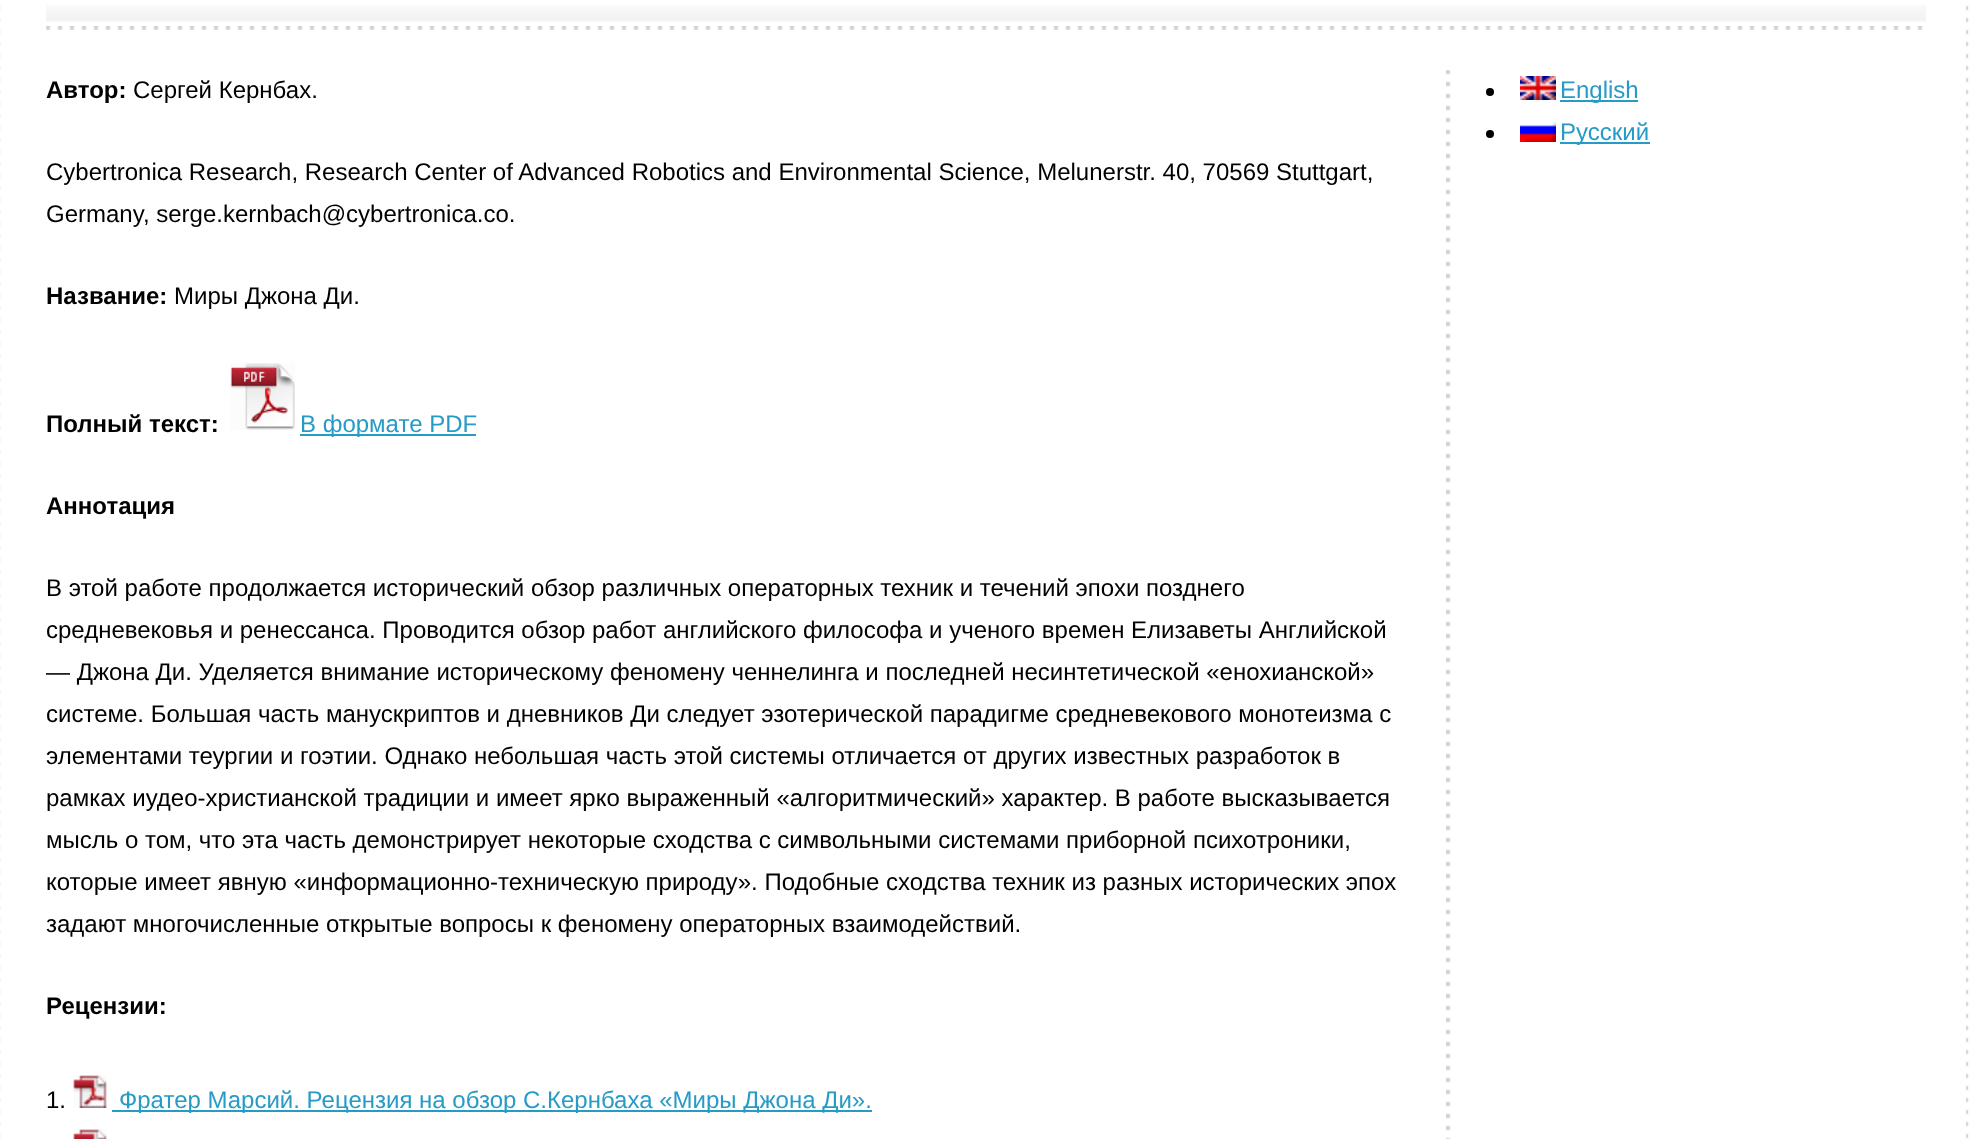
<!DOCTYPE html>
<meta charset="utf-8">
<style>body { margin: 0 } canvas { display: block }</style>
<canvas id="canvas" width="1972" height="1139"></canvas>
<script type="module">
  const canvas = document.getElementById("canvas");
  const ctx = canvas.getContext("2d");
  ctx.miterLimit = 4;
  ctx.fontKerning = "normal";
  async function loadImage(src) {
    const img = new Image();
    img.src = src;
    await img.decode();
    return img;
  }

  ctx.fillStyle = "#ffffff";
  ctx.fillRect(0, 0, 1972, 1139);
  ctx.drawImage(await loadImage("img1.png"), 0, 5, 1969, 1134);
  ctx.fillRect(7, 5, 1959, 1134);
  ctx.drawImage(await loadImage("img2.png"), 46, 5, 1880, 17);
  ctx.drawImage(await loadImage("img3.png"), 46, 26, 1877, 4);
  ctx.drawImage(await loadImage("img4.png"), 1446, 70, 5, 1069);
  ctx.font = "bold 24px Liberation Sans";
  ctx.fillStyle = "#000000";
  ctx.fillText("Автор:", 46, 98);
  ctx.font = "24px Liberation Sans";
  ctx.fillText("Сергей Кернбах.", 133, 98);
  ctx.fillText("Cybertronica Research, Research Center of Advanced Robotics and Environmental Science, Melunerstr. 40, 70569 Stuttgart,", 46, 180);
  ctx.fillText("Germany, serge.kernbach@cybertronica.co.", 46, 222);
  ctx.font = "bold 24px Liberation Sans";
  ctx.fillText("Название:", 46, 304);
  ctx.font = "24px Liberation Sans";
  ctx.fillText("Миры Джона Ди.", 174, 304);
  ctx.font = "bold 24px Liberation Sans";
  ctx.fillText("Полный текст:", 46, 432);
  ctx.drawImage(await loadImage("img5.png"), 230, 363, 65, 67);
  ctx.fillStyle = "#269bc6";
  ctx.fillRect(300, 434, 176, 2);
  ctx.font = "24px Liberation Sans";
  ctx.fillText("В формате PDF", 300, 432);
  ctx.font = "bold 24px Liberation Sans";
  ctx.fillStyle = "#000000";
  ctx.fillText("Аннотация", 46, 514);
  ctx.font = "24px Liberation Sans";
  ctx.fillText("В этой работе продолжается исторический обзор различных операторных техник и течений эпохи позднего", 46, 596);
  ctx.fillText("средневековья и ренессанса. Проводится обзор работ английского философа и ученого времен Елизаветы Английской", 46, 638);
  ctx.fillText("— Джона Ди. Уделяется внимание историческому феномену ченнелинга и последней несинтетической «енохианской»", 46, 680);
  ctx.fillText("системе. Большая часть манускриптов и дневников Ди следует эзотерической парадигме средневекового монотеизма с", 46, 722);
  ctx.fillText("элементами теургии и гоэтии. Однако небольшая часть этой системы отличается от других известных разработок в", 46, 764);
  ctx.fillText("рамках иудео-христианской традиции и имеет ярко выраженный «алгоритмический» характер. В работе высказывается", 46, 806);
  ctx.fillText("мысль о том, что эта часть демонстрирует некоторые сходства с символьными системами приборной психотроники,", 46, 848);
  ctx.fillText("которые имеет явную «информационно-техническую природу». Подобные сходства техник из разных исторических эпох", 46, 890);
  ctx.fillText("задают многочисленные открытые вопросы к феномену операторных взаимодействий.", 46, 932);
  ctx.font = "bold 24px Liberation Sans";
  ctx.fillText("Рецензии:", 46, 1014);
  ctx.font = "24px Liberation Sans";
  ctx.fillText("1.", 46, 1108);
  ctx.drawImage(await loadImage("img6.png"), 73, 1075, 34, 33);
  ctx.fillStyle = "#269bc6";
  ctx.fillRect(112, 1110, 760, 2);
  ctx.fillText("Фратер Марсий. Рецензия на обзор С.Кернбаха «Миры Джона Ди».", 119, 1108);
  ctx.drawImage(await loadImage("img7.png"), 73, 1129, 34, 10);
  ctx.fillStyle = "#000000";
  ctx.beginPath();
  ctx.arc(1490, 92, 4, 0, Math.PI * 2);
  ctx.fill();
  ctx.drawImage(await loadImage("img8.png"), 1520, 76, 36, 24);
  ctx.fillStyle = "#269bc6";
  ctx.fillRect(1560, 100, 78, 2);
  ctx.fillText("English", 1560, 98);
  ctx.fillStyle = "#000000";
  ctx.beginPath();
  ctx.arc(1490, 134, 4, 0, Math.PI * 2);
  ctx.fill();
  ctx.drawImage(await loadImage("img9.png"), 1520, 121, 36, 21);
  ctx.fillStyle = "#269bc6";
  ctx.fillRect(1560, 142, 90, 2);
  ctx.fillText("Русский", 1560, 140);
</script>
